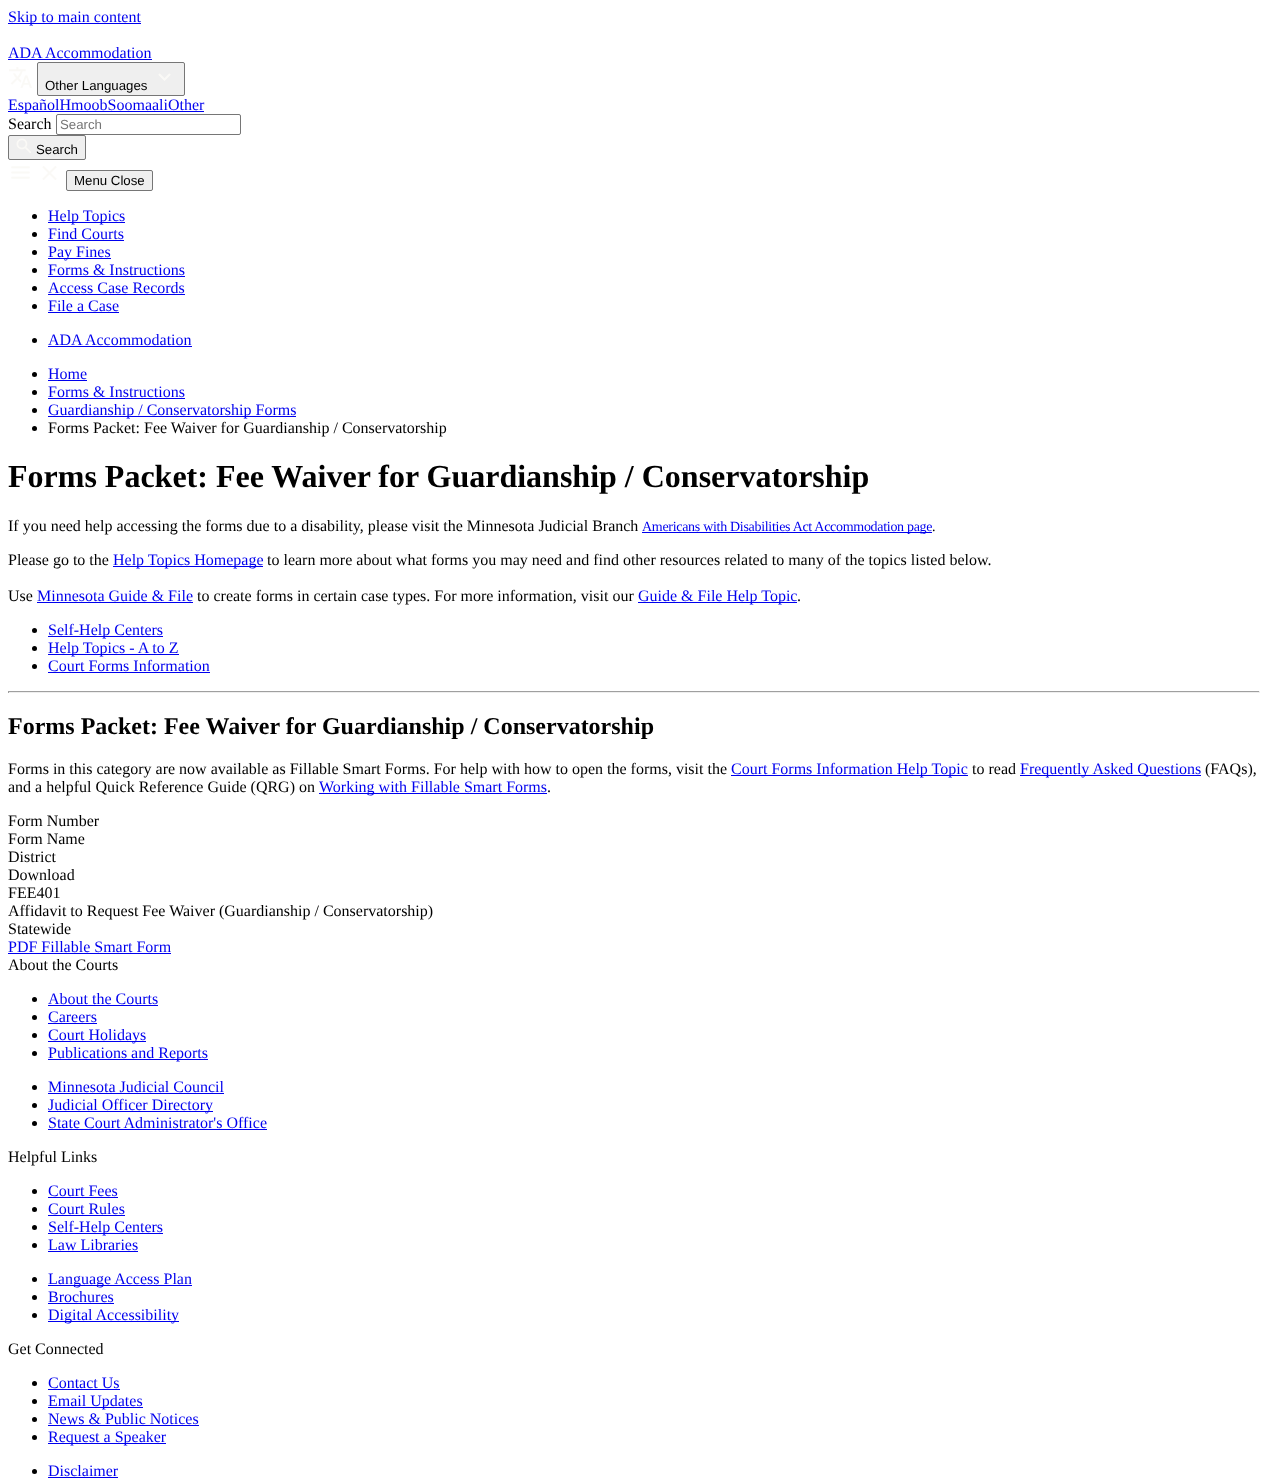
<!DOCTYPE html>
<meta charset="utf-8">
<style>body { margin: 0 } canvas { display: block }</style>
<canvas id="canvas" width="1268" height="1480"></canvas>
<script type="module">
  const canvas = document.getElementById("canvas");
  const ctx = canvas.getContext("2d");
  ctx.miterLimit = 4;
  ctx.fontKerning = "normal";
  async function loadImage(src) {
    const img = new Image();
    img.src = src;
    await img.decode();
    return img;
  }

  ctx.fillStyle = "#ffffff";
  ctx.fillRect(0, 0, 1268, 1480);
  ctx.fillStyle = "#0000ee";
  ctx.fillRect(8, 23, 133, 1);
  ctx.font = "16px Liberation Serif";
  ctx.fillText("Skip to main content", 8, 22);
  ctx.fillText("ADA Accommodation", 8, 58);
  ctx.fillRect(8, 59, 144, 1);
  ctx.drawImage(await loadImage("img1.png"), 9, 67, 23, 21);
  ctx.fillStyle = "#efefef";
  ctx.beginPath();
  ctx.roundRect(37.5, 62.5, 147, 33, 1.5);
  ctx.fill();
  ctx.strokeStyle = "#767676";
  ctx.stroke();
  ctx.drawImage(await loadImage("img2.png"), 158, 73, 13, 8);
  ctx.font = "13.25px Liberation Sans";
  ctx.fillStyle = "#000000";
  ctx.fillText("Other Languages", 45, 90);
  ctx.fillStyle = "#0000ee";
  ctx.fillRect(8, 111, 196, 1);
  ctx.font = "16px Liberation Serif";
  ctx.fillText("EspañolHmoobSoomaaliOther", 8, 110);
  ctx.fillStyle = "#000000";
  ctx.fillText("Search", 8, 129);
  ctx.beginPath();
  ctx.roundRect(56.5, 114.5, 184, 20, 1.5);
  ctx.stroke();
  ctx.font = "13.25px Liberation Sans";
  ctx.fillStyle = "#757575";
  ctx.fillText("Search", 60, 129);
  ctx.fillStyle = "#efefef";
  ctx.beginPath();
  ctx.roundRect(8.5, 135.5, 77, 24, 1.5);
  ctx.fill();
  ctx.stroke();
  ctx.drawImage(await loadImage("img3.png"), 16, 138, 15, 15);
  ctx.fillStyle = "#000000";
  ctx.fillText("Search", 36, 154);
  ctx.drawImage(await loadImage("img4.png"), 11, 166, 19, 13);
  ctx.drawImage(await loadImage("img5.png"), 42, 166, 15, 14);
  ctx.fillStyle = "#efefef";
  ctx.beginPath();
  ctx.roundRect(66.5, 170.5, 86, 20, 1.5);
  ctx.fill();
  ctx.stroke();
  ctx.fillStyle = "#000000";
  ctx.fillText("Menu Close", 74, 185);
  ctx.beginPath();
  ctx.arc(34.5, 216.5, 2.5, 0, Math.PI * 2);
  ctx.fill();
  ctx.fillStyle = "#0000ee";
  ctx.fillRect(48, 222, 77, 1);
  ctx.font = "16px Liberation Serif";
  ctx.fillText("Help Topics", 48, 221);
  ctx.fillStyle = "#000000";
  ctx.beginPath();
  ctx.arc(34.5, 234.5, 2.5, 0, Math.PI * 2);
  ctx.fill();
  ctx.fillStyle = "#0000ee";
  ctx.fillText("Find Courts", 48, 239);
  ctx.fillRect(48, 240, 76, 1);
  ctx.fillStyle = "#000000";
  ctx.beginPath();
  ctx.arc(34.5, 252.5, 2.5, 0, Math.PI * 2);
  ctx.fill();
  ctx.fillStyle = "#0000ee";
  ctx.fillRect(48, 258, 63, 1);
  ctx.fillText("Pay Fines", 48, 257);
  ctx.fillStyle = "#000000";
  ctx.beginPath();
  ctx.arc(34.5, 270.5, 2.5, 0, Math.PI * 2);
  ctx.fill();
  ctx.fillStyle = "#0000ee";
  ctx.fillText("Forms & Instructions", 48, 275);
  ctx.fillRect(48, 276, 137, 1);
  ctx.fillStyle = "#000000";
  ctx.beginPath();
  ctx.arc(34.5, 288.5, 2.5, 0, Math.PI * 2);
  ctx.fill();
  ctx.fillStyle = "#0000ee";
  ctx.fillText("Access Case Records", 48, 293);
  ctx.fillRect(48, 294, 137, 1);
  ctx.fillStyle = "#000000";
  ctx.beginPath();
  ctx.arc(34.5, 306.5, 2.5, 0, Math.PI * 2);
  ctx.fill();
  ctx.fillStyle = "#0000ee";
  ctx.fillText("File a Case", 48, 311);
  ctx.fillRect(48, 312, 71, 1);
  ctx.fillStyle = "#000000";
  ctx.beginPath();
  ctx.arc(34.5, 340.5, 2.5, 0, Math.PI * 2);
  ctx.fill();
  ctx.fillStyle = "#0000ee";
  ctx.fillText("ADA Accommodation", 48, 345);
  ctx.fillRect(48, 346, 144, 1);
  ctx.fillStyle = "#000000";
  ctx.beginPath();
  ctx.arc(34.5, 374.5, 2.5, 0, Math.PI * 2);
  ctx.fill();
  ctx.fillStyle = "#0000ee";
  ctx.fillText("Home", 48, 379);
  ctx.fillRect(48, 380, 39, 1);
  ctx.fillStyle = "#000000";
  ctx.beginPath();
  ctx.arc(34.5, 392.5, 2.5, 0, Math.PI * 2);
  ctx.fill();
  ctx.fillStyle = "#0000ee";
  ctx.fillText("Forms & Instructions", 48, 397);
  ctx.fillRect(48, 398, 137, 1);
  ctx.fillStyle = "#000000";
  ctx.beginPath();
  ctx.arc(34.5, 410.5, 2.5, 0, Math.PI * 2);
  ctx.fill();
  ctx.fillStyle = "#0000ee";
  ctx.fillRect(48, 416, 248, 1);
  ctx.fillText("Guardianship / Conservatorship Forms", 48, 415);
  ctx.fillStyle = "#000000";
  ctx.beginPath();
  ctx.arc(34.5, 428.5, 2.5, 0, Math.PI * 2);
  ctx.fill();
  ctx.fillText("Forms Packet: Fee Waiver for Guardianship / Conservatorship", 48, 433);
  ctx.font = "bold 32px Liberation Serif";
  ctx.fillText("Forms Packet: Fee Waiver for Guardianship / Conservatorship", 8, 487);
  ctx.font = "16px Liberation Serif";
  ctx.fillText("If you need help accessing the forms due to a disability, please visit the Minnesota Judicial Branch", 8, 531);
  ctx.fillStyle = "#0000ee";
  ctx.fillRect(642, 532, 290, 1);
  ctx.letterSpacing = "-0.3px";
  ctx.font = "14px Liberation Serif";
  ctx.fillText("Americans with Disabilities Act Accommodation page", 642, 531);
  ctx.fillStyle = "#000000";
  ctx.fillText(".", 932, 531);
  ctx.letterSpacing = "0px";
  ctx.font = "16px Liberation Serif";
  ctx.fillText("Please go to the", 8, 565);
  ctx.fillStyle = "#0000ee";
  ctx.fillRect(113, 566, 150, 1);
  ctx.fillText("Help Topics Homepage", 113, 565);
  ctx.fillStyle = "#000000";
  ctx.fillText("to learn more about what forms you may need and find other resources related to many of the topics listed below.", 267, 565);
  ctx.fillText("Use", 8, 601);
  ctx.fillStyle = "#0000ee";
  ctx.fillText("Minnesota Guide & File", 37, 601);
  ctx.fillRect(37, 602, 156, 1);
  ctx.fillStyle = "#000000";
  ctx.fillText("to create forms in certain case types. For more information, visit our", 197, 601);
  ctx.fillStyle = "#0000ee";
  ctx.fillRect(638, 602, 159, 1);
  ctx.fillText("Guide & File Help Topic", 638, 601);
  ctx.fillStyle = "#000000";
  ctx.fillText(".", 797, 601);
  ctx.beginPath();
  ctx.arc(34.5, 630.5, 2.5, 0, Math.PI * 2);
  ctx.fill();
  ctx.fillStyle = "#0000ee";
  ctx.fillRect(48, 636, 115, 1);
  ctx.fillText("Self-Help Centers", 48, 635);
  ctx.fillStyle = "#000000";
  ctx.beginPath();
  ctx.arc(34.5, 648.5, 2.5, 0, Math.PI * 2);
  ctx.fill();
  ctx.fillStyle = "#0000ee";
  ctx.fillRect(48, 654, 131, 1);
  ctx.fillText("Help Topics - A to Z", 48, 653);
  ctx.fillStyle = "#000000";
  ctx.beginPath();
  ctx.arc(34.5, 666.5, 2.5, 0, Math.PI * 2);
  ctx.fill();
  ctx.fillStyle = "#0000ee";
  ctx.fillText("Court Forms Information", 48, 671);
  ctx.fillRect(48, 672, 162, 1);
  ctx.fillStyle = "#9f9f9f";
  ctx.fillRect(8, 691, 1252, 1);
  ctx.fillStyle = "#eeeeee";
  ctx.fillRect(1259, 691, 1, 2);
  ctx.fillRect(8, 692, 1252, 1);
  ctx.fillStyle = "#9f9f9f";
  ctx.fillRect(8, 691, 1, 2);
  ctx.font = "bold 24px Liberation Serif";
  ctx.fillStyle = "#000000";
  ctx.fillText("Forms Packet: Fee Waiver for Guardianship / Conservatorship", 8, 734);
  ctx.font = "16px Liberation Serif";
  ctx.fillText("Forms in this category are now available as Fillable Smart Forms. For help with how to open the forms, visit the", 8, 774);
  ctx.fillStyle = "#0000ee";
  ctx.fillRect(731, 775, 237, 1);
  ctx.fillText("Court Forms Information Help Topic", 731, 774);
  ctx.fillStyle = "#000000";
  ctx.fillText("to read", 972, 774);
  ctx.fillStyle = "#0000ee";
  ctx.fillRect(1020, 775, 181, 1);
  ctx.fillText("Frequently Asked Questions", 1020, 774);
  ctx.fillStyle = "#000000";
  ctx.fillText("(FAQs),", 1205, 774);
  ctx.fillText("and a helpful Quick Reference Guide (QRG) on", 8, 792);
  ctx.fillStyle = "#0000ee";
  ctx.fillRect(319, 793, 228, 1);
  ctx.fillText("Working with Fillable Smart Forms", 319, 792);
  ctx.fillStyle = "#000000";
  ctx.fillText(".", 547, 792);
  ctx.fillText("Form Number", 8, 826);
  ctx.fillText("Form Name", 8, 844);
  ctx.fillText("District", 8, 862);
  ctx.fillText("Download", 8, 880);
  ctx.fillText("FEE401", 8, 898);
  ctx.fillText("Affidavit to Request Fee Waiver (Guardianship / Conservatorship)", 8, 916);
  ctx.fillText("Statewide", 8, 934);
  ctx.fillStyle = "#0000ee";
  ctx.fillText("PDF Fillable Smart Form", 8, 952);
  ctx.fillRect(8, 953, 163, 1);
  ctx.fillStyle = "#000000";
  ctx.fillText("About the Courts", 8, 970);
  ctx.beginPath();
  ctx.arc(34.5, 999.5, 2.5, 0, Math.PI * 2);
  ctx.fill();
  ctx.fillStyle = "#0000ee";
  ctx.fillText("About the Courts", 48, 1004);
  ctx.fillRect(48, 1005, 110, 1);
  ctx.fillStyle = "#000000";
  ctx.beginPath();
  ctx.arc(34.5, 1017.5, 2.5, 0, Math.PI * 2);
  ctx.fill();
  ctx.fillStyle = "#0000ee";
  ctx.fillText("Careers", 48, 1022);
  ctx.fillRect(48, 1023, 49, 1);
  ctx.fillStyle = "#000000";
  ctx.beginPath();
  ctx.arc(34.5, 1035.5, 2.5, 0, Math.PI * 2);
  ctx.fill();
  ctx.fillStyle = "#0000ee";
  ctx.fillRect(48, 1041, 98, 1);
  ctx.fillText("Court Holidays", 48, 1040);
  ctx.fillStyle = "#000000";
  ctx.beginPath();
  ctx.arc(34.5, 1053.5, 2.5, 0, Math.PI * 2);
  ctx.fill();
  ctx.fillStyle = "#0000ee";
  ctx.fillRect(48, 1059, 160, 1);
  ctx.fillText("Publications and Reports", 48, 1058);
  ctx.fillStyle = "#000000";
  ctx.beginPath();
  ctx.arc(34.5, 1087.5, 2.5, 0, Math.PI * 2);
  ctx.fill();
  ctx.fillStyle = "#0000ee";
  ctx.fillText("Minnesota Judicial Council", 48, 1092);
  ctx.fillRect(48, 1093, 176, 1);
  ctx.fillStyle = "#000000";
  ctx.beginPath();
  ctx.arc(34.5, 1105.5, 2.5, 0, Math.PI * 2);
  ctx.fill();
  ctx.fillStyle = "#0000ee";
  ctx.fillRect(48, 1111, 165, 1);
  ctx.fillText("Judicial Officer Directory", 48, 1110);
  ctx.fillStyle = "#000000";
  ctx.beginPath();
  ctx.arc(34.5, 1123.5, 2.5, 0, Math.PI * 2);
  ctx.fill();
  ctx.fillStyle = "#0000ee";
  ctx.fillText("State Court Administrator's Office", 48, 1128);
  ctx.fillRect(48, 1129, 219, 1);
  ctx.fillStyle = "#000000";
  ctx.fillText("Helpful Links", 8, 1162);
  ctx.beginPath();
  ctx.arc(34.5, 1191.5, 2.5, 0, Math.PI * 2);
  ctx.fill();
  ctx.fillStyle = "#0000ee";
  ctx.fillText("Court Fees", 48, 1196);
  ctx.fillRect(48, 1197, 70, 1);
  ctx.fillStyle = "#000000";
  ctx.beginPath();
  ctx.arc(34.5, 1209.5, 2.5, 0, Math.PI * 2);
  ctx.fill();
  ctx.fillStyle = "#0000ee";
  ctx.fillText("Court Rules", 48, 1214);
  ctx.fillRect(48, 1215, 77, 1);
  ctx.fillStyle = "#000000";
  ctx.beginPath();
  ctx.arc(34.5, 1227.5, 2.5, 0, Math.PI * 2);
  ctx.fill();
  ctx.fillStyle = "#0000ee";
  ctx.fillRect(48, 1233, 115, 1);
  ctx.fillText("Self-Help Centers", 48, 1232);
  ctx.fillStyle = "#000000";
  ctx.beginPath();
  ctx.arc(34.5, 1245.5, 2.5, 0, Math.PI * 2);
  ctx.fill();
  ctx.fillStyle = "#0000ee";
  ctx.fillText("Law Libraries", 48, 1250);
  ctx.fillRect(48, 1251, 90, 1);
  ctx.fillStyle = "#000000";
  ctx.beginPath();
  ctx.arc(34.5, 1279.5, 2.5, 0, Math.PI * 2);
  ctx.fill();
  ctx.fillStyle = "#0000ee";
  ctx.fillRect(48, 1285, 144, 1);
  ctx.fillText("Language Access Plan", 48, 1284);
  ctx.fillStyle = "#000000";
  ctx.beginPath();
  ctx.arc(34.5, 1297.5, 2.5, 0, Math.PI * 2);
  ctx.fill();
  ctx.fillStyle = "#0000ee";
  ctx.fillText("Brochures", 48, 1302);
  ctx.fillRect(48, 1303, 66, 1);
  ctx.fillStyle = "#000000";
  ctx.beginPath();
  ctx.arc(34.5, 1315.5, 2.5, 0, Math.PI * 2);
  ctx.fill();
  ctx.fillStyle = "#0000ee";
  ctx.fillRect(48, 1321, 131, 1);
  ctx.fillText("Digital Accessibility", 48, 1320);
  ctx.fillStyle = "#000000";
  ctx.fillText("Get Connected", 8, 1354);
  ctx.beginPath();
  ctx.arc(34.5, 1383.5, 2.5, 0, Math.PI * 2);
  ctx.fill();
  ctx.fillStyle = "#0000ee";
  ctx.fillText("Contact Us", 48, 1388);
  ctx.fillRect(48, 1389, 72, 1);
  ctx.fillStyle = "#000000";
  ctx.beginPath();
  ctx.arc(34.5, 1401.5, 2.5, 0, Math.PI * 2);
  ctx.fill();
  ctx.fillStyle = "#0000ee";
  ctx.fillRect(48, 1407, 95, 1);
  ctx.fillText("Email Updates", 48, 1406);
  ctx.fillStyle = "#000000";
  ctx.beginPath();
  ctx.arc(34.5, 1419.5, 2.5, 0, Math.PI * 2);
  ctx.fill();
  ctx.fillStyle = "#0000ee";
  ctx.fillText("News & Public Notices", 48, 1424);
  ctx.fillRect(48, 1425, 151, 1);
  ctx.fillStyle = "#000000";
  ctx.beginPath();
  ctx.arc(34.5, 1437.5, 2.5, 0, Math.PI * 2);
  ctx.fill();
  ctx.fillStyle = "#0000ee";
  ctx.fillRect(48, 1443, 118, 1);
  ctx.fillText("Request a Speaker", 48, 1442);
  ctx.fillStyle = "#000000";
  ctx.beginPath();
  ctx.arc(34.5, 1471.5, 2.5, 0, Math.PI * 2);
  ctx.fill();
  ctx.fillStyle = "#0000ee";
  ctx.fillText("Disclaimer", 48, 1476);
  ctx.fillRect(48, 1477, 70, 1);
</script>
